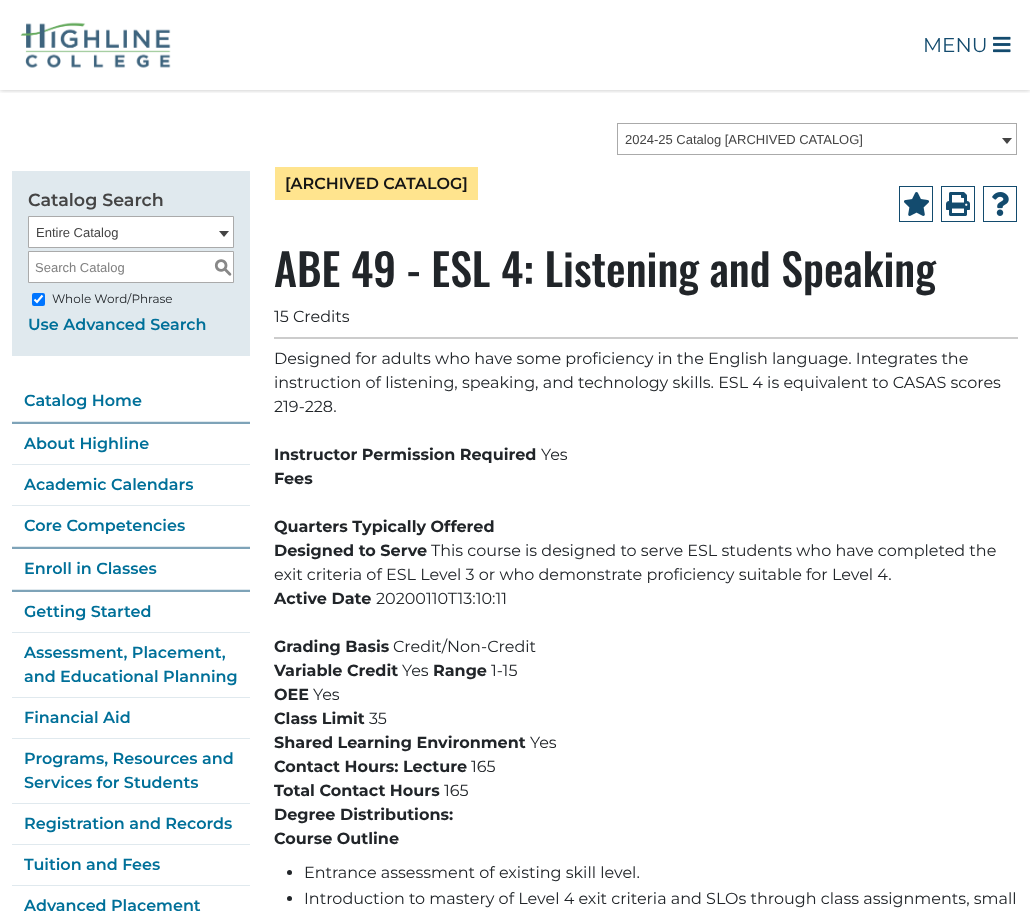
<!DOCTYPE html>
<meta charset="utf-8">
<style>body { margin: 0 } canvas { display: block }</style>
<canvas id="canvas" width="1030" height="913"></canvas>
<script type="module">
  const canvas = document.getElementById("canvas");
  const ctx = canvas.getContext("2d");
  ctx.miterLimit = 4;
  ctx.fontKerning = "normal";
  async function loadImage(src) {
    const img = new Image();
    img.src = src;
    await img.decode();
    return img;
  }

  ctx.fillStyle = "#ffffff";
  ctx.fillRect(0, 0, 1030, 913);
  ctx.save();
  ctx.beginPath();
  ctx.rect(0, 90, 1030, 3);
  ctx.clip();
  ctx.fillStyle = "rgba(0, 0, 0, 0.25)";
  ctx.filter = "blur(2.5px)";
  ctx.beginPath();
  ctx.rect(0, 0, 1030, 90);
  ctx.fill();
  ctx.filter = "none";
  ctx.restore();
  ctx.drawImage(await loadImage("img1.png"), 20, 22, 151, 46);
  ctx.font = "20px Montserrat";
  ctx.fillStyle = "#134b6e";
  ctx.fillText("MENU", 923, 52);
  ctx.drawImage(await loadImage("img2.png"), 993, 36, 18, 17);
  ctx.strokeStyle = "#aaaaaa";
  ctx.strokeRect(617.5, 123.5, 399, 31);
  ctx.font = "13px Liberation Sans";
  ctx.fillStyle = "#444444";
  ctx.fillText("2024-25 Catalog [ARCHIVED CATALOG]", 625, 144);
  ctx.beginPath();
  ctx.moveTo(1002, 138);
  ctx.lineTo(1012, 138);
  ctx.lineTo(1007, 144);
  ctx.closePath();
  ctx.fill();
  ctx.fillStyle = "#e0e9ee";
  ctx.fillRect(12, 171, 238, 185);
  ctx.font = "600 17.5px Montserrat";
  ctx.fillStyle = "#444444";
  ctx.fillText("Catalog Search", 28, 206);
  ctx.fillStyle = "#ffffff";
  ctx.beginPath();
  ctx.rect(28.5, 216.5, 205, 31);
  ctx.fill();
  ctx.stroke();
  ctx.font = "13px Liberation Sans";
  ctx.fillStyle = "#444444";
  ctx.fillText("Entire Catalog", 36, 237);
  ctx.beginPath();
  ctx.moveTo(219, 231);
  ctx.lineTo(229, 231);
  ctx.lineTo(224, 237);
  ctx.closePath();
  ctx.fill();
  ctx.fillStyle = "#ffffff";
  ctx.beginPath();
  ctx.rect(28.5, 251.5, 205, 31);
  ctx.fill();
  ctx.stroke();
  ctx.fillStyle = "#808080";
  ctx.fillText("Search Catalog", 35, 272);
  ctx.font = "500 18px 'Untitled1'";
  ctx.fillStyle = "#888888";
  ctx.fillText("S", 214, 273);
  ctx.fillStyle = "#0075ff";
  ctx.beginPath();
  ctx.roundRect(32, 293, 13, 13, 2);
  ctx.fill();
  ctx.beginPath();
  ctx.moveTo(34.5, 299.5);
  ctx.lineTo(37, 302);
  ctx.lineTo(42.5, 295.5);
  ctx.strokeStyle = "#ffffff";
  ctx.lineWidth = 2.1;
  ctx.stroke();
  ctx.font = "12px Montserrat";
  ctx.fillStyle = "#212529";
  ctx.fillText("Whole Word/Phrase", 52, 303);
  ctx.font = "600 16px Montserrat";
  ctx.fillStyle = "#007099";
  ctx.fillText("Use Advanced Search", 28, 330);
  ctx.fillStyle = "#e0e9ee";
  ctx.fillRect(12, 421, 238, 1);
  ctx.fillStyle = "#007099";
  ctx.fillText("Catalog Home", 24, 406);
  ctx.fillStyle = "#7ea3b8";
  ctx.fillRect(12, 422, 238, 2);
  ctx.fillStyle = "#e0e9ee";
  ctx.fillRect(12, 464, 238, 1);
  ctx.fillStyle = "#007099";
  ctx.fillText("About Highline", 24, 449);
  ctx.fillStyle = "#e0e9ee";
  ctx.fillRect(12, 505, 238, 1);
  ctx.fillStyle = "#007099";
  ctx.fillText("Academic Calendars", 24, 490);
  ctx.fillStyle = "#e0e9ee";
  ctx.fillRect(12, 546, 238, 1);
  ctx.fillStyle = "#007099";
  ctx.fillText("Core Competencies", 24, 531);
  ctx.fillStyle = "#7ea3b8";
  ctx.fillRect(12, 547, 238, 2);
  ctx.fillStyle = "#e0e9ee";
  ctx.fillRect(12, 589, 238, 1);
  ctx.fillStyle = "#007099";
  ctx.fillText("Enroll in Classes", 24, 574);
  ctx.fillStyle = "#7ea3b8";
  ctx.fillRect(12, 590, 238, 2);
  ctx.fillStyle = "#e0e9ee";
  ctx.fillRect(12, 632, 238, 1);
  ctx.fillStyle = "#007099";
  ctx.fillText("Getting Started", 24, 617);
  ctx.fillStyle = "#e0e9ee";
  ctx.fillRect(12, 697, 238, 1);
  ctx.fillStyle = "#007099";
  ctx.fillText("Assessment, Placement,", 24, 658);
  ctx.fillText("and Educational Planning", 24, 682);
  ctx.fillStyle = "#e0e9ee";
  ctx.fillRect(12, 738, 238, 1);
  ctx.fillStyle = "#007099";
  ctx.fillText("Financial Aid", 24, 723);
  ctx.fillStyle = "#e0e9ee";
  ctx.fillRect(12, 803, 238, 1);
  ctx.fillStyle = "#007099";
  ctx.fillText("Programs, Resources and", 24, 764);
  ctx.fillText("Services for Students", 24, 788);
  ctx.fillStyle = "#e0e9ee";
  ctx.fillRect(12, 844, 238, 1);
  ctx.fillStyle = "#007099";
  ctx.fillText("Registration and Records", 24, 829);
  ctx.fillStyle = "#e0e9ee";
  ctx.fillRect(12, 885, 238, 1);
  ctx.fillStyle = "#007099";
  ctx.fillText("Tuition and Fees", 24, 870);
  ctx.fillText("Advanced Placement", 24, 911);
  ctx.fillStyle = "#ffe48e";
  ctx.fillRect(275, 167, 203, 33);
  ctx.fillStyle = "#151515";
  ctx.fillText("[ARCHIVED CATALOG]", 285, 189);
  ctx.strokeStyle = "#134b6e";
  ctx.lineWidth = 1;
  ctx.strokeRect(899.5, 186.5, 33, 35);
  ctx.drawImage(await loadImage("img3.png"), 904, 192, 25, 24);
  ctx.strokeRect(941.5, 186.5, 33, 35);
  ctx.drawImage(await loadImage("img4.png"), 946, 192, 24, 24);
  ctx.strokeRect(983.5, 186.5, 33, 35);
  ctx.drawImage(await loadImage("img5.png"), 992, 192, 17, 24);
  ctx.font = "500 44px Oswald";
  ctx.fillStyle = "#212529";
  ctx.fillText("ABE 49 - ESL 4: Listening and Speaking", 274, 287);
  ctx.font = "16px Montserrat";
  ctx.fillText("15 Credits", 274, 322);
  ctx.fillStyle = "#cccccc";
  ctx.fillRect(274, 337, 744, 2);
  ctx.fillStyle = "#212529";
  ctx.fillText("Designed for adults who have some proficiency in the English language. Integrates the", 274, 364);
  ctx.fillText("instruction of listening, speaking, and technology skills. ESL 4 is equivalent to CASAS scores", 274, 388);
  ctx.fillText("219-228.", 274, 412);
  ctx.font = "bold 16px Montserrat";
  ctx.fillText("Instructor Permission Required", 274, 460);
  ctx.font = "16px Montserrat";
  ctx.fillText("Yes", 541, 460);
  ctx.font = "bold 16px Montserrat";
  ctx.fillText("Fees", 274, 484);
  ctx.fillText("Quarters Typically Offered", 274, 532);
  ctx.fillText("Designed to Serve", 274, 556);
  ctx.font = "16px Montserrat";
  ctx.fillText("This course is designed to serve ESL students who have completed the", 431, 556);
  ctx.fillText("exit criteria of ESL Level 3 or who demonstrate proficiency suitable for Level 4.", 274, 580);
  ctx.font = "bold 16px Montserrat";
  ctx.fillText("Active Date", 274, 604);
  ctx.font = "16px Montserrat";
  ctx.fillText("20200110T13:10:11", 376, 604);
  ctx.font = "bold 16px Montserrat";
  ctx.fillText("Grading Basis", 274, 652);
  ctx.font = "16px Montserrat";
  ctx.fillText("Credit/Non-Credit", 393, 652);
  ctx.font = "bold 16px Montserrat";
  ctx.fillText("Variable Credit", 274, 676);
  ctx.font = "16px Montserrat";
  ctx.fillText("Yes", 402, 676);
  ctx.font = "bold 16px Montserrat";
  ctx.fillText("Range", 433, 676);
  ctx.font = "16px Montserrat";
  ctx.fillText("1-15", 491, 676);
  ctx.font = "bold 16px Montserrat";
  ctx.fillText("OEE", 274, 700);
  ctx.font = "16px Montserrat";
  ctx.fillText("Yes", 313, 700);
  ctx.font = "bold 16px Montserrat";
  ctx.fillText("Class Limit", 274, 724);
  ctx.font = "16px Montserrat";
  ctx.fillText("35", 369, 724);
  ctx.font = "bold 16px Montserrat";
  ctx.fillText("Shared Learning Environment", 274, 748);
  ctx.font = "16px Montserrat";
  ctx.fillText("Yes", 530, 748);
  ctx.font = "bold 16px Montserrat";
  ctx.fillText("Contact Hours:", 274, 772);
  ctx.fillText("Lecture", 403, 772);
  ctx.font = "16px Montserrat";
  ctx.fillText("165", 471, 772);
  ctx.font = "bold 16px Montserrat";
  ctx.fillText("Total Contact Hours", 274, 796);
  ctx.font = "16px Montserrat";
  ctx.fillText("165", 444, 796);
  ctx.font = "bold 16px Montserrat";
  ctx.fillText("Degree Distributions:", 274, 820);
  ctx.fillText("Course Outline", 274, 844);
  ctx.beginPath();
  ctx.arc(289.5, 872.5, 2.5, 0, Math.PI * 2);
  ctx.fill();
  ctx.font = "16px Montserrat";
  ctx.fillText("Entrance assessment of existing skill level.", 304, 878);
  ctx.beginPath();
  ctx.arc(289.5, 898.5, 2.5, 0, Math.PI * 2);
  ctx.fill();
  ctx.fillText("Introduction to mastery of Level 4 exit criteria and SLOs through class assignments, small", 304, 904);
</script>
